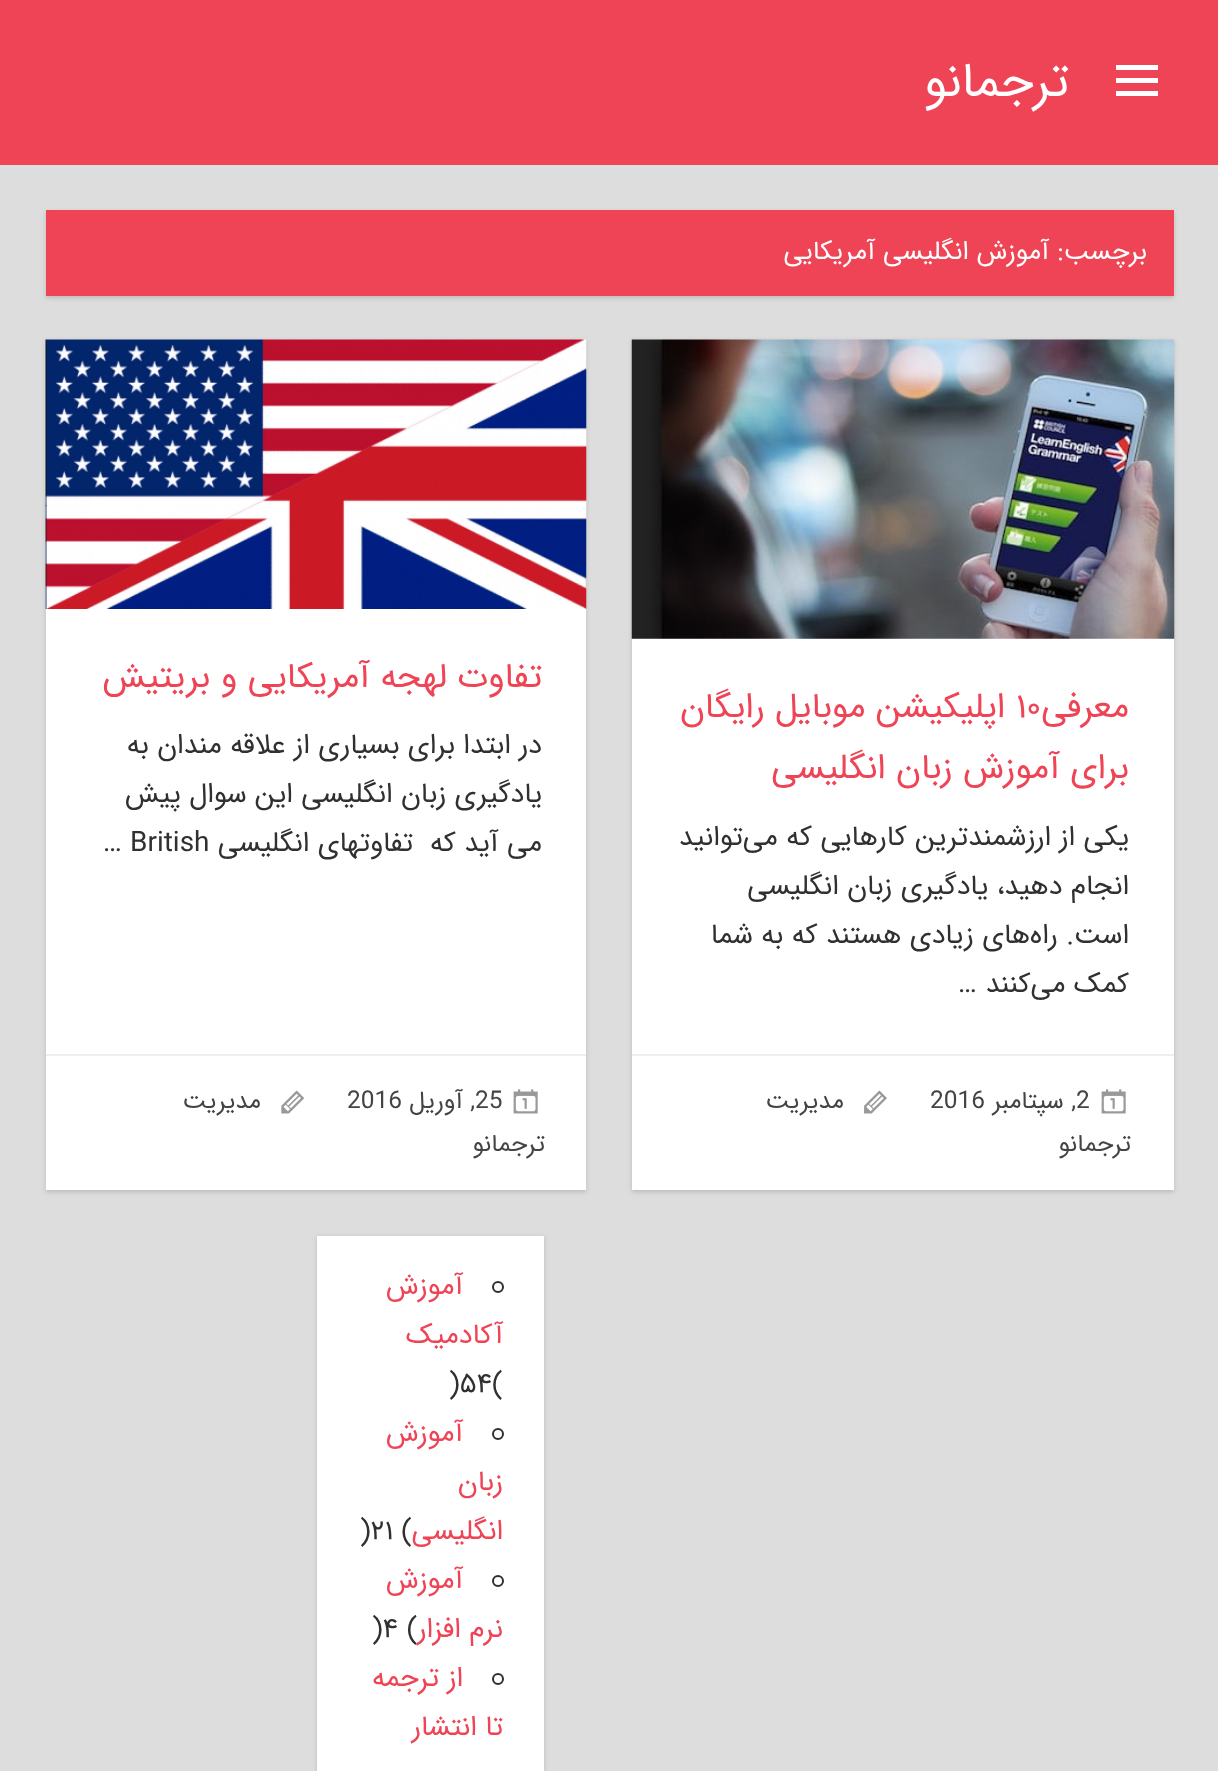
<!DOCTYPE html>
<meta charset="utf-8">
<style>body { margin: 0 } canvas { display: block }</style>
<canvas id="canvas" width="1218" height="1771"></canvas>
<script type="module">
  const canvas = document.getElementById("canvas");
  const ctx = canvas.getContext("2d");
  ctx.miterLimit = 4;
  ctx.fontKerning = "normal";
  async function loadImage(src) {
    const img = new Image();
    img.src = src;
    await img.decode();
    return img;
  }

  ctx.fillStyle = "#dddddd";
  ctx.fillRect(0, 0, 1218, 1771);
  ctx.fillStyle = "#ee4455";
  ctx.fillRect(0, 0, 1218, 165);
  ctx.fillStyle = "#ffffff";
  ctx.beginPath();
  ctx.moveTo(1116, 96);
  ctx.lineTo(1116, 91);
  ctx.lineTo(1158, 91);
  ctx.lineTo(1158, 96);
  ctx.closePath();
  ctx.moveTo(1116, 65);
  ctx.lineTo(1158, 65);
  ctx.lineTo(1158, 70);
  ctx.lineTo(1116, 70);
  ctx.closePath();
  ctx.moveTo(1116, 83);
  ctx.lineTo(1116, 78);
  ctx.lineTo(1158, 78);
  ctx.lineTo(1158, 83);
  ctx.closePath();
  ctx.fill();
  ctx.direction = "rtl";
  ctx.font = "49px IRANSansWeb";
  ctx.fillText("ترجمانو", 1069, 96);
  ctx.fillStyle = "#bbbbbb";
  ctx.filter = "blur(2px)";
  ctx.beginPath();
  ctx.rect(46, 212, 1128, 86);
  ctx.fill();
  ctx.filter = "none";
  ctx.fillStyle = "#ee4455";
  ctx.fillRect(46, 210, 1128, 86);
  ctx.font = "26.25px IRANSansWeb";
  ctx.fillStyle = "#ffffff";
  ctx.fillText("برچسب:", 1147, 259);
  ctx.fillText("آموزش انگلیسی آمریکایی", 1049, 259);
  ctx.fillStyle = "#bbbbbb";
  ctx.filter = "blur(2px)";
  ctx.beginPath();
  ctx.rect(632, 341, 542, 851);
  ctx.fill();
  ctx.filter = "none";
  ctx.fillStyle = "#ffffff";
  ctx.fillRect(632, 638, 542, 552);
  ctx.drawImage(await loadImage("img1.png"), 631, 339, 544, 300);
  ctx.font = "35px IRANSansWeb";
  ctx.fillStyle = "#ee4455";
  ctx.fillText("معرفی", 1129, 717);
  ctx.direction = "ltr";
  ctx.fillText("۱۰", 1016, 717);
  ctx.direction = "rtl";
  ctx.fillText("اپلیکیشن موبایل رایگان", 1005, 717);
  ctx.fillText("برای آموزش زبان انگلیسی", 1129, 778);
  ctx.font = "28px IRANSansWeb";
  ctx.fillStyle = "#303030";
  ctx.fillText("یکی از ارزشمندترین کارهایی که می‌توانید", 1129, 845);
  ctx.fillText("انجام دهید، یادگیری زبان انگلیسی", 1129, 894);
  ctx.fillText("است. راه‌های زیادی هستند که به شما", 1129, 943);
  ctx.fillText("کمک می‌کنند", 1129, 992);
  ctx.direction = "ltr";
  ctx.fillText("…", 958, 992);
  ctx.fillStyle = "#eeeeee";
  ctx.fillRect(632, 1054, 542, 2);
  ctx.drawImage(await loadImage("img2.png"), 1101, 1089, 25, 25);
  ctx.font = "24.5px IRANSansWeb";
  ctx.fillStyle = "#444444";
  ctx.fillText("2", 1076, 1108);
  ctx.direction = "rtl";
  ctx.fillText(", سپتامبر", 1076, 1108);
  ctx.direction = "ltr";
  ctx.fillText("2016", 930, 1108);
  ctx.drawImage(await loadImage("img3.png"), 864, 1090, 23, 24);
  ctx.direction = "rtl";
  ctx.fillText("مدیریت", 844, 1108);
  ctx.fillText("ترجمانو", 1131, 1151);
  ctx.fillStyle = "#bbbbbb";
  ctx.filter = "blur(2px)";
  ctx.beginPath();
  ctx.rect(46, 341, 540, 851);
  ctx.fill();
  ctx.filter = "none";
  ctx.fillStyle = "#ffffff";
  ctx.fillRect(46, 609, 540, 581);
  ctx.drawImage(await loadImage("img4.png"), 45, 339, 542, 270);
  ctx.font = "35px IRANSansWeb";
  ctx.fillStyle = "#ee4455";
  ctx.fillText("تفاوت لهجه آمریکایی و بریتیش", 542, 687);
  ctx.font = "28px IRANSansWeb";
  ctx.fillStyle = "#303030";
  ctx.fillText("در ابتدا برای بسیاری از علاقه مندان به", 542, 753);
  ctx.fillText("یادگیری زبان انگلیسی این سوال پیش", 542, 802);
  ctx.fillText("می آید که  تفاوتهای انگلیسی", 542, 851);
  ctx.direction = "ltr";
  ctx.fillText("British", 130, 851);
  ctx.fillText("…", 103, 851);
  ctx.fillStyle = "#eeeeee";
  ctx.fillRect(46, 1054, 540, 2);
  ctx.drawImage(await loadImage("img2.png"), 513, 1089, 25, 25);
  ctx.font = "24.5px IRANSansWeb";
  ctx.fillStyle = "#444444";
  ctx.fillText("25", 475, 1108);
  ctx.direction = "rtl";
  ctx.fillText(", آوریل", 475, 1108);
  ctx.direction = "ltr";
  ctx.fillText("2016", 347, 1108);
  ctx.drawImage(await loadImage("img5.png"), 281, 1090, 24, 24);
  ctx.direction = "rtl";
  ctx.fillText("مدیریت", 261, 1108);
  ctx.fillText("ترجمانو", 545, 1151);
  ctx.fillStyle = "#bbbbbb";
  ctx.filter = "blur(2px)";
  ctx.beginPath();
  ctx.rect(317, 1237, 227, 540);
  ctx.fill();
  ctx.filter = "none";
  ctx.fillStyle = "#ffffff";
  ctx.fillRect(317, 1236, 227, 535);
  ctx.beginPath();
  ctx.arc(498, 1287, 5, 0, Math.PI * 2);
  ctx.strokeStyle = "#303030";
  ctx.lineWidth = 2;
  ctx.stroke();
  ctx.font = "28px IRANSansWeb";
  ctx.fillStyle = "#ee4455";
  ctx.fillText("آموزش", 463, 1294);
  ctx.fillText("آکادمیک", 503, 1343);
  ctx.direction = "ltr";
  ctx.fillStyle = "#303030";
  ctx.fillText(")۵۴(", 449, 1392);
  ctx.beginPath();
  ctx.arc(498, 1434, 5, 0, Math.PI * 2);
  ctx.stroke();
  ctx.direction = "rtl";
  ctx.fillStyle = "#ee4455";
  ctx.fillText("آموزش", 463, 1441);
  ctx.fillText("زبان", 503, 1490);
  ctx.fillText("انگلیسی", 503, 1539);
  ctx.direction = "ltr";
  ctx.fillStyle = "#303030";
  ctx.fillText(")۲۱ (", 360, 1539);
  ctx.beginPath();
  ctx.arc(498, 1581, 5, 0, Math.PI * 2);
  ctx.stroke();
  ctx.direction = "rtl";
  ctx.fillStyle = "#ee4455";
  ctx.fillText("آموزش", 463, 1588);
  ctx.fillText("نرم افزار", 503, 1637);
  ctx.direction = "ltr";
  ctx.fillStyle = "#303030";
  ctx.fillText(")۴ (", 372, 1637);
  ctx.beginPath();
  ctx.arc(498, 1679, 5, 0, Math.PI * 2);
  ctx.stroke();
  ctx.direction = "rtl";
  ctx.fillStyle = "#ee4455";
  ctx.fillText("از ترجمه", 463, 1686);
  ctx.fillText("تا انتشار", 503, 1735);
</script>
